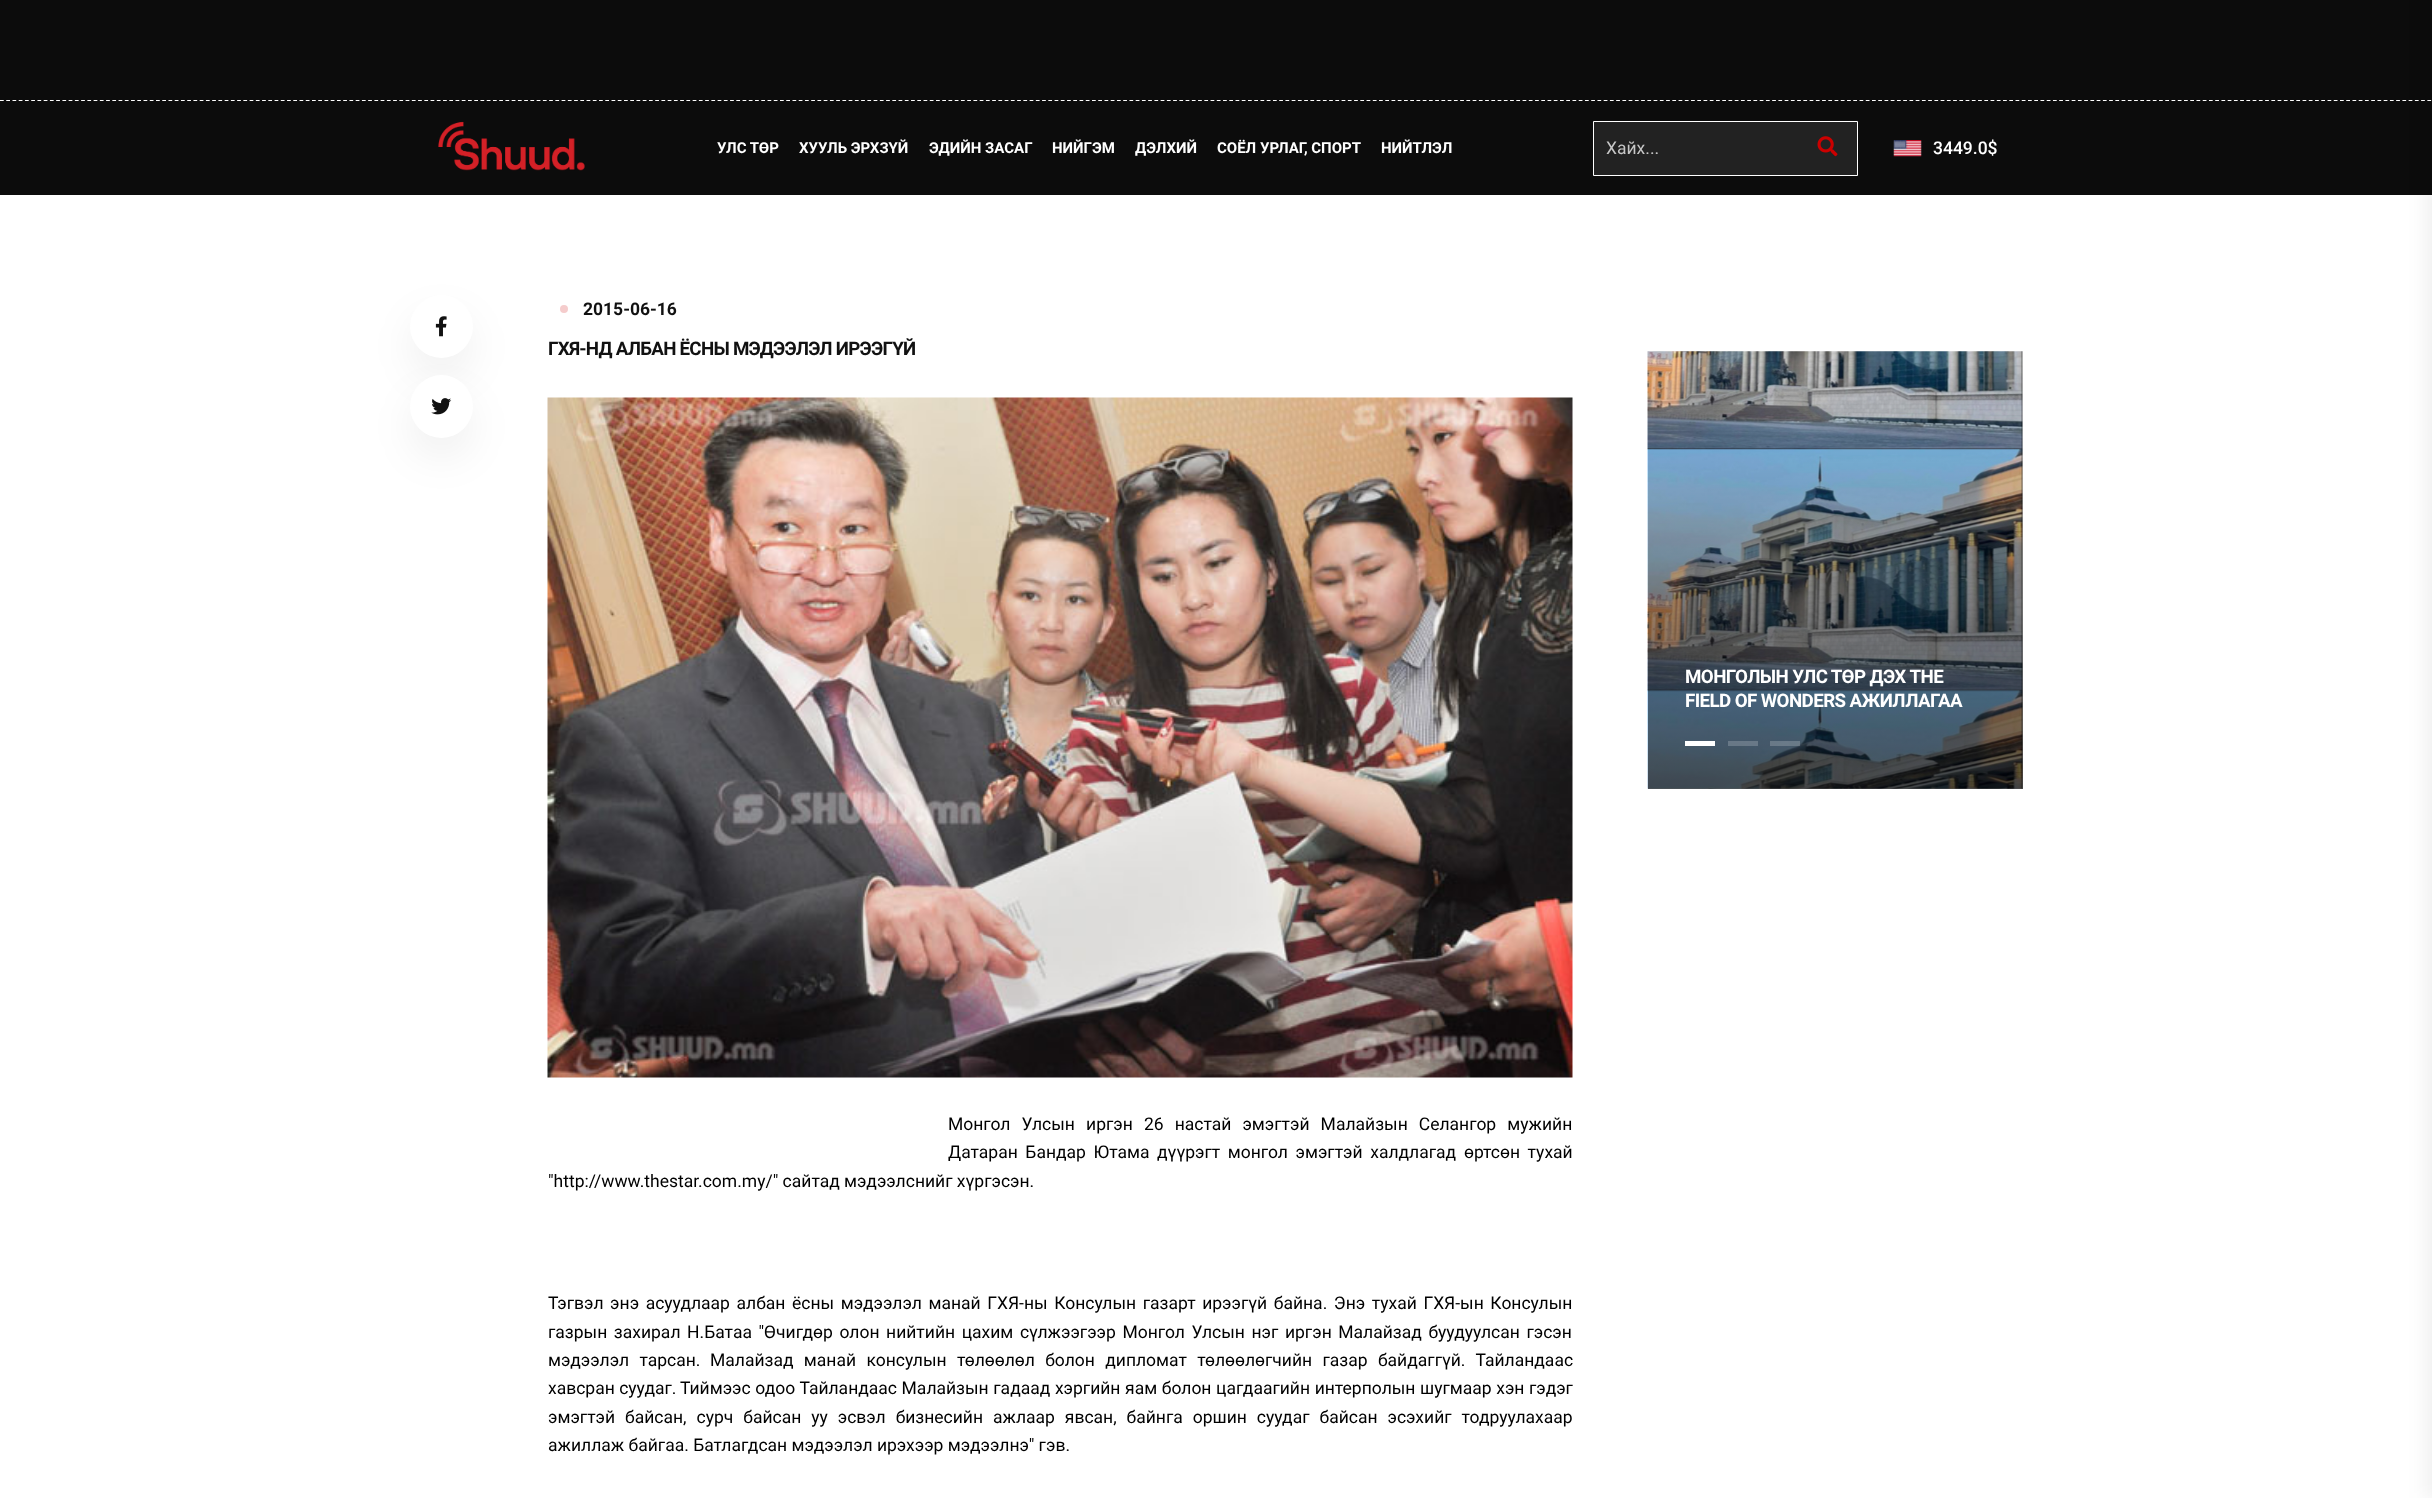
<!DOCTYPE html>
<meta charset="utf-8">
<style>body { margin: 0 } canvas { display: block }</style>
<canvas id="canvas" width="2432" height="1498"></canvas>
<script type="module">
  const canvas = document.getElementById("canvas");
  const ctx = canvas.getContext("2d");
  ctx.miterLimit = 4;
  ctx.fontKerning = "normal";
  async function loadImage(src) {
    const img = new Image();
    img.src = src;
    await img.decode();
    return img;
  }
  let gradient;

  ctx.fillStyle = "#ffffff";
  ctx.fillRect(0, 0, 2432, 1498);
  ctx.fillStyle = "#0c0c0c";
  ctx.fillRect(0, 0, 2432, 101);
  ctx.beginPath();
  ctx.moveTo(0, 100.5);
  ctx.lineTo(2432.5, 100.5);
  ctx.strokeStyle = "#ffffff";
  ctx.lineWidth = 1.2;
  ctx.setLineDash([3.75, 2.49]);
  ctx.stroke();
  ctx.fillRect(0, 101, 2432, 94);
  ctx.drawImage(await loadImage("img1.png"), 438, 121, 147, 50);
  ctx.font = "bold 15px Roboto";
  ctx.fillStyle = "#ffffff";
  ctx.fillText("УЛС ТӨР", 717, 153);
  ctx.fillText("ХУУЛЬ ЭРХЗҮЙ", 799, 153);
  ctx.fillText("ЭДИЙН ЗАСАГ", 929, 153);
  ctx.fillText("НИЙГЭМ", 1052, 153);
  ctx.fillText("ДЭЛХИЙ", 1135, 153);
  ctx.fillText("СОЁЛ УРЛАГ, СПОРТ", 1217, 153);
  ctx.fillText("НИЙТЛЭЛ", 1381, 153);
  ctx.fillStyle = "#222222";
  ctx.beginPath();
  ctx.rect(1593.5, 121.5, 264, 54);
  ctx.fill();
  ctx.lineWidth = 1;
  ctx.setLineDash([]);
  ctx.stroke();
  ctx.font = "17.5px Roboto";
  ctx.fillStyle = "#c7c7c7";
  ctx.fillText("Хайх...", 1606, 154);
  ctx.drawImage(await loadImage("img2.png"), 1817, 136, 21, 21);
  ctx.drawImage(await loadImage("img3.png"), 1893, 140, 29, 17);
  ctx.font = "500 17.5px Roboto";
  ctx.fillStyle = "#ffffff";
  ctx.fillText("3449.0$", 1933, 154);
  ctx.fillStyle = "rgba(0, 0, 0, 0.06)";
  ctx.filter = "blur(9px)";
  ctx.beginPath();
  ctx.rect(2425, 0, 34, 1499);
  ctx.fill();
  ctx.filter = "none";
  ctx.filter = "blur(20px)";
  ctx.beginPath();
  ctx.roundRect(410, 315, 63, 63, 31.5);
  ctx.fill();
  ctx.filter = "none";
  ctx.fillStyle = "#ffffff";
  ctx.beginPath();
  ctx.arc(441.5, 326.5, 31.5, 0, Math.PI * 2);
  ctx.fill();
  ctx.fillStyle = "rgba(0, 0, 0, 0.06)";
  ctx.filter = "blur(20px)";
  ctx.beginPath();
  ctx.roundRect(410, 395, 63, 63, 31.5);
  ctx.fill();
  ctx.filter = "none";
  ctx.drawImage(await loadImage("img4.png"), 435, 316, 12, 21);
  ctx.fillStyle = "#ffffff";
  ctx.beginPath();
  ctx.arc(441.5, 406.5, 31.5, 0, Math.PI * 2);
  ctx.fill();
  ctx.drawImage(await loadImage("img5.png"), 431, 398, 21, 17);
  ctx.fillStyle = "#f5cccc";
  ctx.beginPath();
  ctx.arc(564, 309, 4, 0, Math.PI * 2);
  ctx.fill();
  ctx.font = "bold 17.5px Roboto";
  ctx.fillStyle = "#111111";
  ctx.fillText("2015-06-16", 583, 315);
  ctx.letterSpacing = "-0.75px";
  ctx.font = "bold 18.75px Roboto";
  ctx.fillText("ГХЯ-НД АЛБАН ЁСНЫ МЭДЭЭЛЭЛ ИРЭЭГҮЙ", 548, 355);
  ctx.drawImage(await loadImage("img6.png"), 547, 397, 1026, 681);
  ctx.letterSpacing = "0px";
  ctx.wordSpacing = "6.75px";
  ctx.font = "17.5px Roboto";
  ctx.fillStyle = "#000000";
  ctx.fillText("Монгол Улсын иргэн 26 настай эмэгтэй Малайзын Селангор мужийн", 948, 1130);
  ctx.wordSpacing = "3.25px";
  ctx.fillText("Датаран Бандар Ютама дүүрэгт монгол эмэгтэй халдлагад", 948, 1158);
  ctx.fillText("өртсөн тухай", 1464, 1158);
  ctx.wordSpacing = "0px";
  ctx.fillText("\"http://www.thestar.com.my/\" сайтад мэдээлснийг хүргэсэн.", 548, 1187);
  ctx.wordSpacing = "2.25px";
  ctx.fillText("Тэгвэл энэ асуудлаар албан ёсны мэдээлэл манай ГХЯ-ны Консулын газарт ирээгүй байна. Энэ тухай ГХЯ-ын Консулын", 548, 1309);
  ctx.fillText("газрын захирал Н.Батаа \"Өчигдөр олон нийтийн цахим сүлжээгээр Монгол Улсын нэг иргэн Малайзад буудуулсан гэсэн", 548, 1338);
  ctx.wordSpacing = "6px";
  ctx.fillText("мэдээлэл тарсан.", 548, 1366);
  ctx.fillText("Малайзад манай консулын төлөөлөл болон дипломат төлөөлөгчийн газар байдаггүй. Тайландаас", 710, 1366);
  ctx.wordSpacing = "0px";
  ctx.fillText("хавсран суудаг.", 548, 1394);
  ctx.wordSpacing = "0.25px";
  ctx.fillText("Тиймээс одоо Тайландаас Малайзын гадаад хэргийн яам болон цагдаагийн интерполын шугмаар хэн гэдэг", 680, 1394);
  ctx.wordSpacing = "5.6px";
  ctx.fillText("эмэгтэй байсан, сурч байсан уу эсвэл бизнесийн ажлаар явсан, байнга оршин суудаг байсан эсэхийг тодруулахаар", 548, 1423);
  ctx.wordSpacing = "0px";
  ctx.fillText("ажиллаж байгаа. Батлагдсан мэдээлэл ирэхээр мэдээлнэ\" гэв.", 548, 1451);
  ctx.drawImage(await loadImage("img7.png"), 1647, 351, 376, 438);
  gradient = ctx.createLinearGradient(1835, 789, 1835, 351);
  gradient.addColorStop(0, "rgba(0, 0, 0, 0.63)");
  gradient.addColorStop(1, "rgba(0, 0, 0, 0)");
  ctx.fillStyle = gradient;
  ctx.fillRect(1648, 366, 375, 423);
  ctx.letterSpacing = "-0.6px";
  ctx.font = "bold 18.75px Roboto";
  ctx.fillStyle = "#ffffff";
  ctx.fillText("МОНГОЛЫН УЛС ТӨР ДЭХ THE", 1685, 683);
  ctx.fillText("FIELD OF WONDERS АЖИЛЛАГАА", 1685, 707);
  ctx.fillRect(1685, 741, 30, 5);
  ctx.fillStyle = "rgba(255, 255, 255, 0.2)";
  ctx.fillRect(1728, 741, 30, 5);
  ctx.fillRect(1770, 741, 30, 5);
</script>
